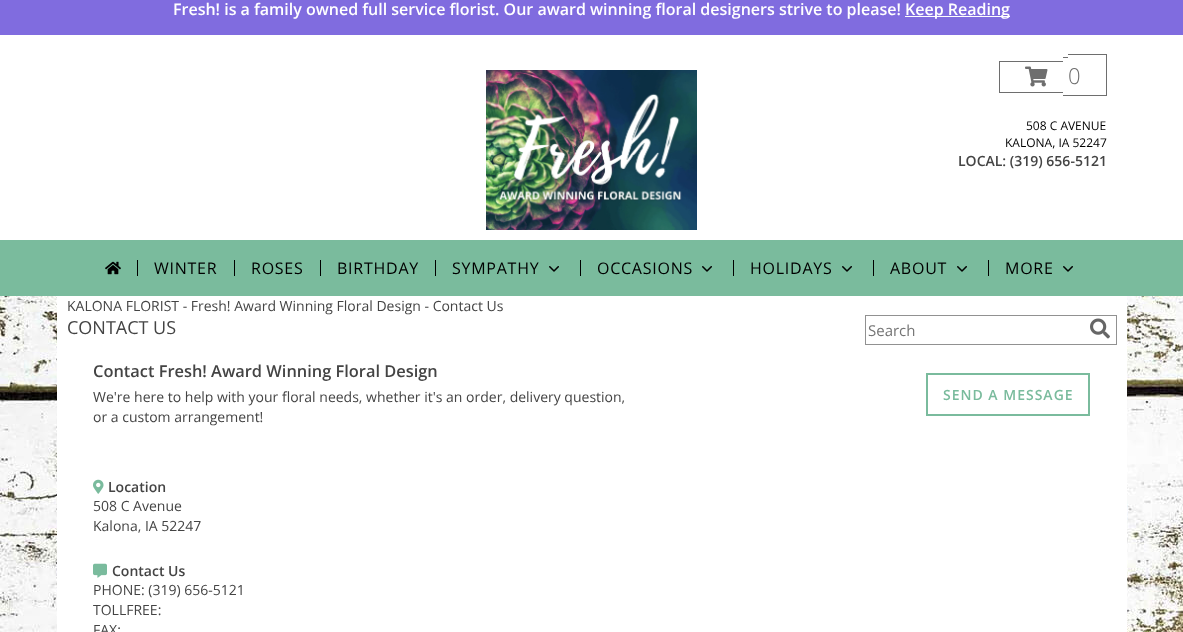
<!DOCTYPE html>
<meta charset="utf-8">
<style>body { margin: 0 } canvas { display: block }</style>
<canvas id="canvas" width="1183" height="632"></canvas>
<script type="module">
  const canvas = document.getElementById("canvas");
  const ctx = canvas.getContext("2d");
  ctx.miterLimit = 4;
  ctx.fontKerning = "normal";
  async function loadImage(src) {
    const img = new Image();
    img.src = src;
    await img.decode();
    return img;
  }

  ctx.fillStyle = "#ffffff";
  ctx.fillRect(0, 0, 1183, 632);
  ctx.drawImage(await loadImage("img1.png"), 0, 296, 1183, 336);
  ctx.fillRect(57, 296, 1070, 336);
  ctx.fillStyle = "#806cdf";
  ctx.fillRect(0, 0, 1183, 35);
  ctx.font = "600 16px Open Sans";
  ctx.fillStyle = "#ffffff";
  ctx.fillText("Fresh! is a family owned full service florist. Our award winning floral designers strive to please!", 173, 15);
  ctx.fillRect(905, 16, 105, 1);
  ctx.fillText("Keep Reading", 905, 15);
  ctx.drawImage(await loadImage("img2.png"), 486, 70, 211, 160);
  ctx.fillStyle = "#6e6e6e";
  ctx.fillRect(999, 61, 64, 1);
  ctx.fillRect(999, 92, 64, 1);
  ctx.fillRect(999, 61, 1, 32);
  ctx.fillRect(1063, 57, 5, 1);
  ctx.fillRect(1063, 95, 5, 1);
  ctx.fillRect(1068, 54, 39, 1);
  ctx.fillRect(1106, 54, 1, 42);
  ctx.fillRect(1068, 95, 39, 1);
  ctx.drawImage(await loadImage("img3.png"), 1025, 66, 23, 21);
  ctx.font = "300 22px Open Sans";
  ctx.fillText("0", 1068, 84);
  ctx.font = "12px Open Sans";
  ctx.fillStyle = "#000000";
  ctx.fillText("508 C AVENUE", 1026, 130);
  ctx.fillText("KALONA, IA 52247", 1005, 147);
  ctx.font = "600 14px Open Sans";
  ctx.fillStyle = "#444444";
  ctx.fillText("LOCAL: (319) 656-5121", 958, 166);
  ctx.fillStyle = "#7abb9d";
  ctx.fillRect(0, 240, 1183, 56);
  ctx.drawImage(await loadImage("img4.png"), 105, 261, 16, 14);
  ctx.fillStyle = "#000000";
  ctx.fillRect(137, 260, 1, 16);
  ctx.letterSpacing = "0.75px";
  ctx.font = "16px Open Sans";
  ctx.fillText("WINTER", 154, 274);
  ctx.fillRect(234, 260, 1, 16);
  ctx.fillText("ROSES", 251, 274);
  ctx.fillRect(320, 260, 1, 16);
  ctx.fillText("BIRTHDAY", 337, 274);
  ctx.fillRect(435, 260, 1, 16);
  ctx.fillText("SYMPATHY", 452, 274);
  ctx.drawImage(await loadImage("img5.png"), 549, 266, 10, 6);
  ctx.fillRect(580, 260, 1, 16);
  ctx.fillText("OCCASIONS", 597, 274);
  ctx.drawImage(await loadImage("img5.png"), 702, 266, 10, 6);
  ctx.fillRect(733, 260, 1, 16);
  ctx.fillText("HOLIDAYS", 750, 274);
  ctx.drawImage(await loadImage("img5.png"), 842, 266, 10, 6);
  ctx.fillRect(873, 260, 1, 16);
  ctx.fillText("ABOUT", 890, 274);
  ctx.drawImage(await loadImage("img5.png"), 957, 266, 10, 6);
  ctx.fillRect(988, 260, 1, 16);
  ctx.fillText("MORE", 1005, 274);
  ctx.drawImage(await loadImage("img5.png"), 1063, 266, 10, 6);
  ctx.letterSpacing = "0px";
  ctx.font = "14px Open Sans";
  ctx.fillStyle = "#444444";
  ctx.fillText("KALONA FLORIST - Fresh! Award Winning Floral Design - Contact Us", 67, 311);
  ctx.font = "18px Open Sans";
  ctx.fillText("CONTACT US", 67, 334);
  ctx.strokeStyle = "#919191";
  ctx.strokeRect(865.5, 315.5, 251, 29);
  ctx.font = "15px Open Sans";
  ctx.fillStyle = "#757575";
  ctx.fillText("Search", 868, 336);
  ctx.drawImage(await loadImage("img6.png"), 1090, 318, 20, 21);
  ctx.font = "600 16.4px Open Sans";
  ctx.fillStyle = "#444444";
  ctx.fillText("Contact Fresh! Award Winning Floral Design", 93, 377);
  ctx.font = "14px Open Sans";
  ctx.fillText("We're here to help with your floral needs, whether it's an order, delivery question,", 93, 402);
  ctx.fillText("or a custom arrangement!", 93, 422);
  ctx.strokeStyle = "#7abb9d";
  ctx.lineWidth = 2;
  ctx.strokeRect(927, 374, 162, 41);
  ctx.letterSpacing = "1px";
  ctx.font = "600 14px Open Sans";
  ctx.fillStyle = "#7abb9d";
  ctx.fillText("SEND A MESSAGE", 943, 400);
  ctx.drawImage(await loadImage("img7.png"), 93, 479, 11, 15);
  ctx.letterSpacing = "0px";
  ctx.fillStyle = "#444444";
  ctx.fillText("Location", 108, 492);
  ctx.font = "14px Open Sans";
  ctx.fillText("508 C Avenue", 93, 511);
  ctx.fillText("Kalona, IA 52247", 93, 531);
  ctx.drawImage(await loadImage("img8.png"), 93, 563, 14, 15);
  ctx.font = "600 14px Open Sans";
  ctx.fillText("Contact Us", 112, 576);
  ctx.font = "14px Open Sans";
  ctx.fillText("PHONE: (319) 656-5121", 93, 595);
  ctx.fillText("TOLLFREE:", 93, 615);
  ctx.fillText("FAX:", 93, 635);
</script>
